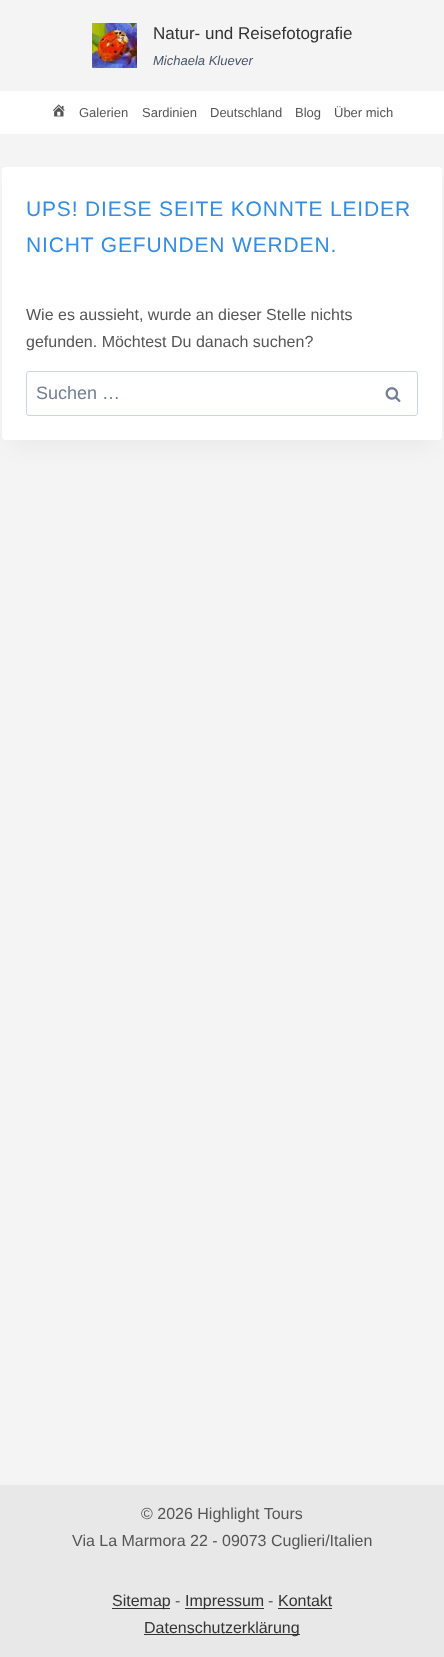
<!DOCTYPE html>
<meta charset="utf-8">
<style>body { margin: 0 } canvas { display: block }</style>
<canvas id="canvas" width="444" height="1657"></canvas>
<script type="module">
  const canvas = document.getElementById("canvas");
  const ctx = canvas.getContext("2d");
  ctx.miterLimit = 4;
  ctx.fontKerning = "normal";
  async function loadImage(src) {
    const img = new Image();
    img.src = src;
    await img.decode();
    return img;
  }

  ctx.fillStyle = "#f4f4f4";
  ctx.fillRect(0, 0, 444, 1657);
  ctx.drawImage(await loadImage("img1.png"), 92, 23, 45, 45);
  ctx.font = "17px Liberation Sans";
  ctx.fillStyle = "#333333";
  ctx.fillText("Natur- und Reisefotografie", 153, 39);
  ctx.font = "italic 13px Liberation Sans";
  ctx.fillStyle = "#4a5568";
  ctx.fillText("Michaela Kluever", 153, 65);
  ctx.fillStyle = "#ffffff";
  ctx.fillRect(0, 91, 444, 43);
  ctx.drawImage(await loadImage("img2.png"), 53, 104, 12, 13);
  ctx.font = "13px Liberation Sans";
  ctx.fillStyle = "#555555";
  ctx.fillText("Galerien", 79, 117);
  ctx.fillText("Sardinien", 142, 117);
  ctx.fillText("Deutschland", 210, 117);
  ctx.fillText("Blog", 295, 117);
  ctx.fillText("Über mich", 334, 117);
  ctx.fillStyle = "rgba(0, 0, 0, 0.05)";
  ctx.filter = "blur(12.5px)";
  ctx.beginPath();
  ctx.rect(12, 192, 420, 253);
  ctx.fill();
  ctx.filter = "none";
  ctx.fillStyle = "#ffffff";
  ctx.beginPath();
  ctx.roundRect(2, 167, 440, 273, 4);
  ctx.fill();
  ctx.letterSpacing = "0.85px";
  ctx.font = "21px Liberation Sans";
  ctx.fillStyle = "#338de5";
  ctx.fillText("UPS! DIESE SEITE KONNTE LEIDER", 26, 216);
  ctx.fillText("NICHT GEFUNDEN WERDEN.", 26, 252);
  ctx.letterSpacing = "0px";
  ctx.font = "16px Liberation Sans";
  ctx.fillStyle = "#555555";
  ctx.fillText("Wie es aussieht, wurde an dieser Stelle nichts", 26, 320);
  ctx.fillText("gefunden. Möchtest Du danach suchen?", 26, 347);
  ctx.beginPath();
  ctx.roundRect(26.5, 371.5, 391, 44, 2.5);
  ctx.strokeStyle = "#cbd5e0";
  ctx.stroke();
  ctx.font = "18px Liberation Sans";
  ctx.fillStyle = "#718096";
  ctx.fillText("Suchen …", 36, 399);
  ctx.drawImage(await loadImage("img3.png"), 385, 387, 16, 15);
  ctx.fillStyle = "#e8e8e8";
  ctx.fillRect(0, 1485, 444, 172);
  ctx.font = "16px Liberation Sans";
  ctx.fillStyle = "#555555";
  ctx.fillText("© 2026 Highlight Tours", 141, 1519);
  ctx.fillText("Via La Marmora 22 - 09073 Cuglieri/Italien", 72, 1546);
  ctx.fillStyle = "#333333";
  ctx.fillRect(112, 1608, 58, 1);
  ctx.fillText("Sitemap", 112, 1606);
  ctx.fillStyle = "#555555";
  ctx.fillText("-", 175, 1606);
  ctx.fillStyle = "#333333";
  ctx.fillRect(185, 1608, 79, 1);
  ctx.fillText("Impressum", 185, 1606);
  ctx.fillStyle = "#555555";
  ctx.fillText("-", 268, 1606);
  ctx.fillStyle = "#333333";
  ctx.fillText("Kontakt", 278, 1606);
  ctx.fillRect(278, 1608, 54, 1);
  ctx.fillRect(144, 1634, 156, 1);
  ctx.fillText("Datenschutzerklärung", 144, 1633);
</script>
